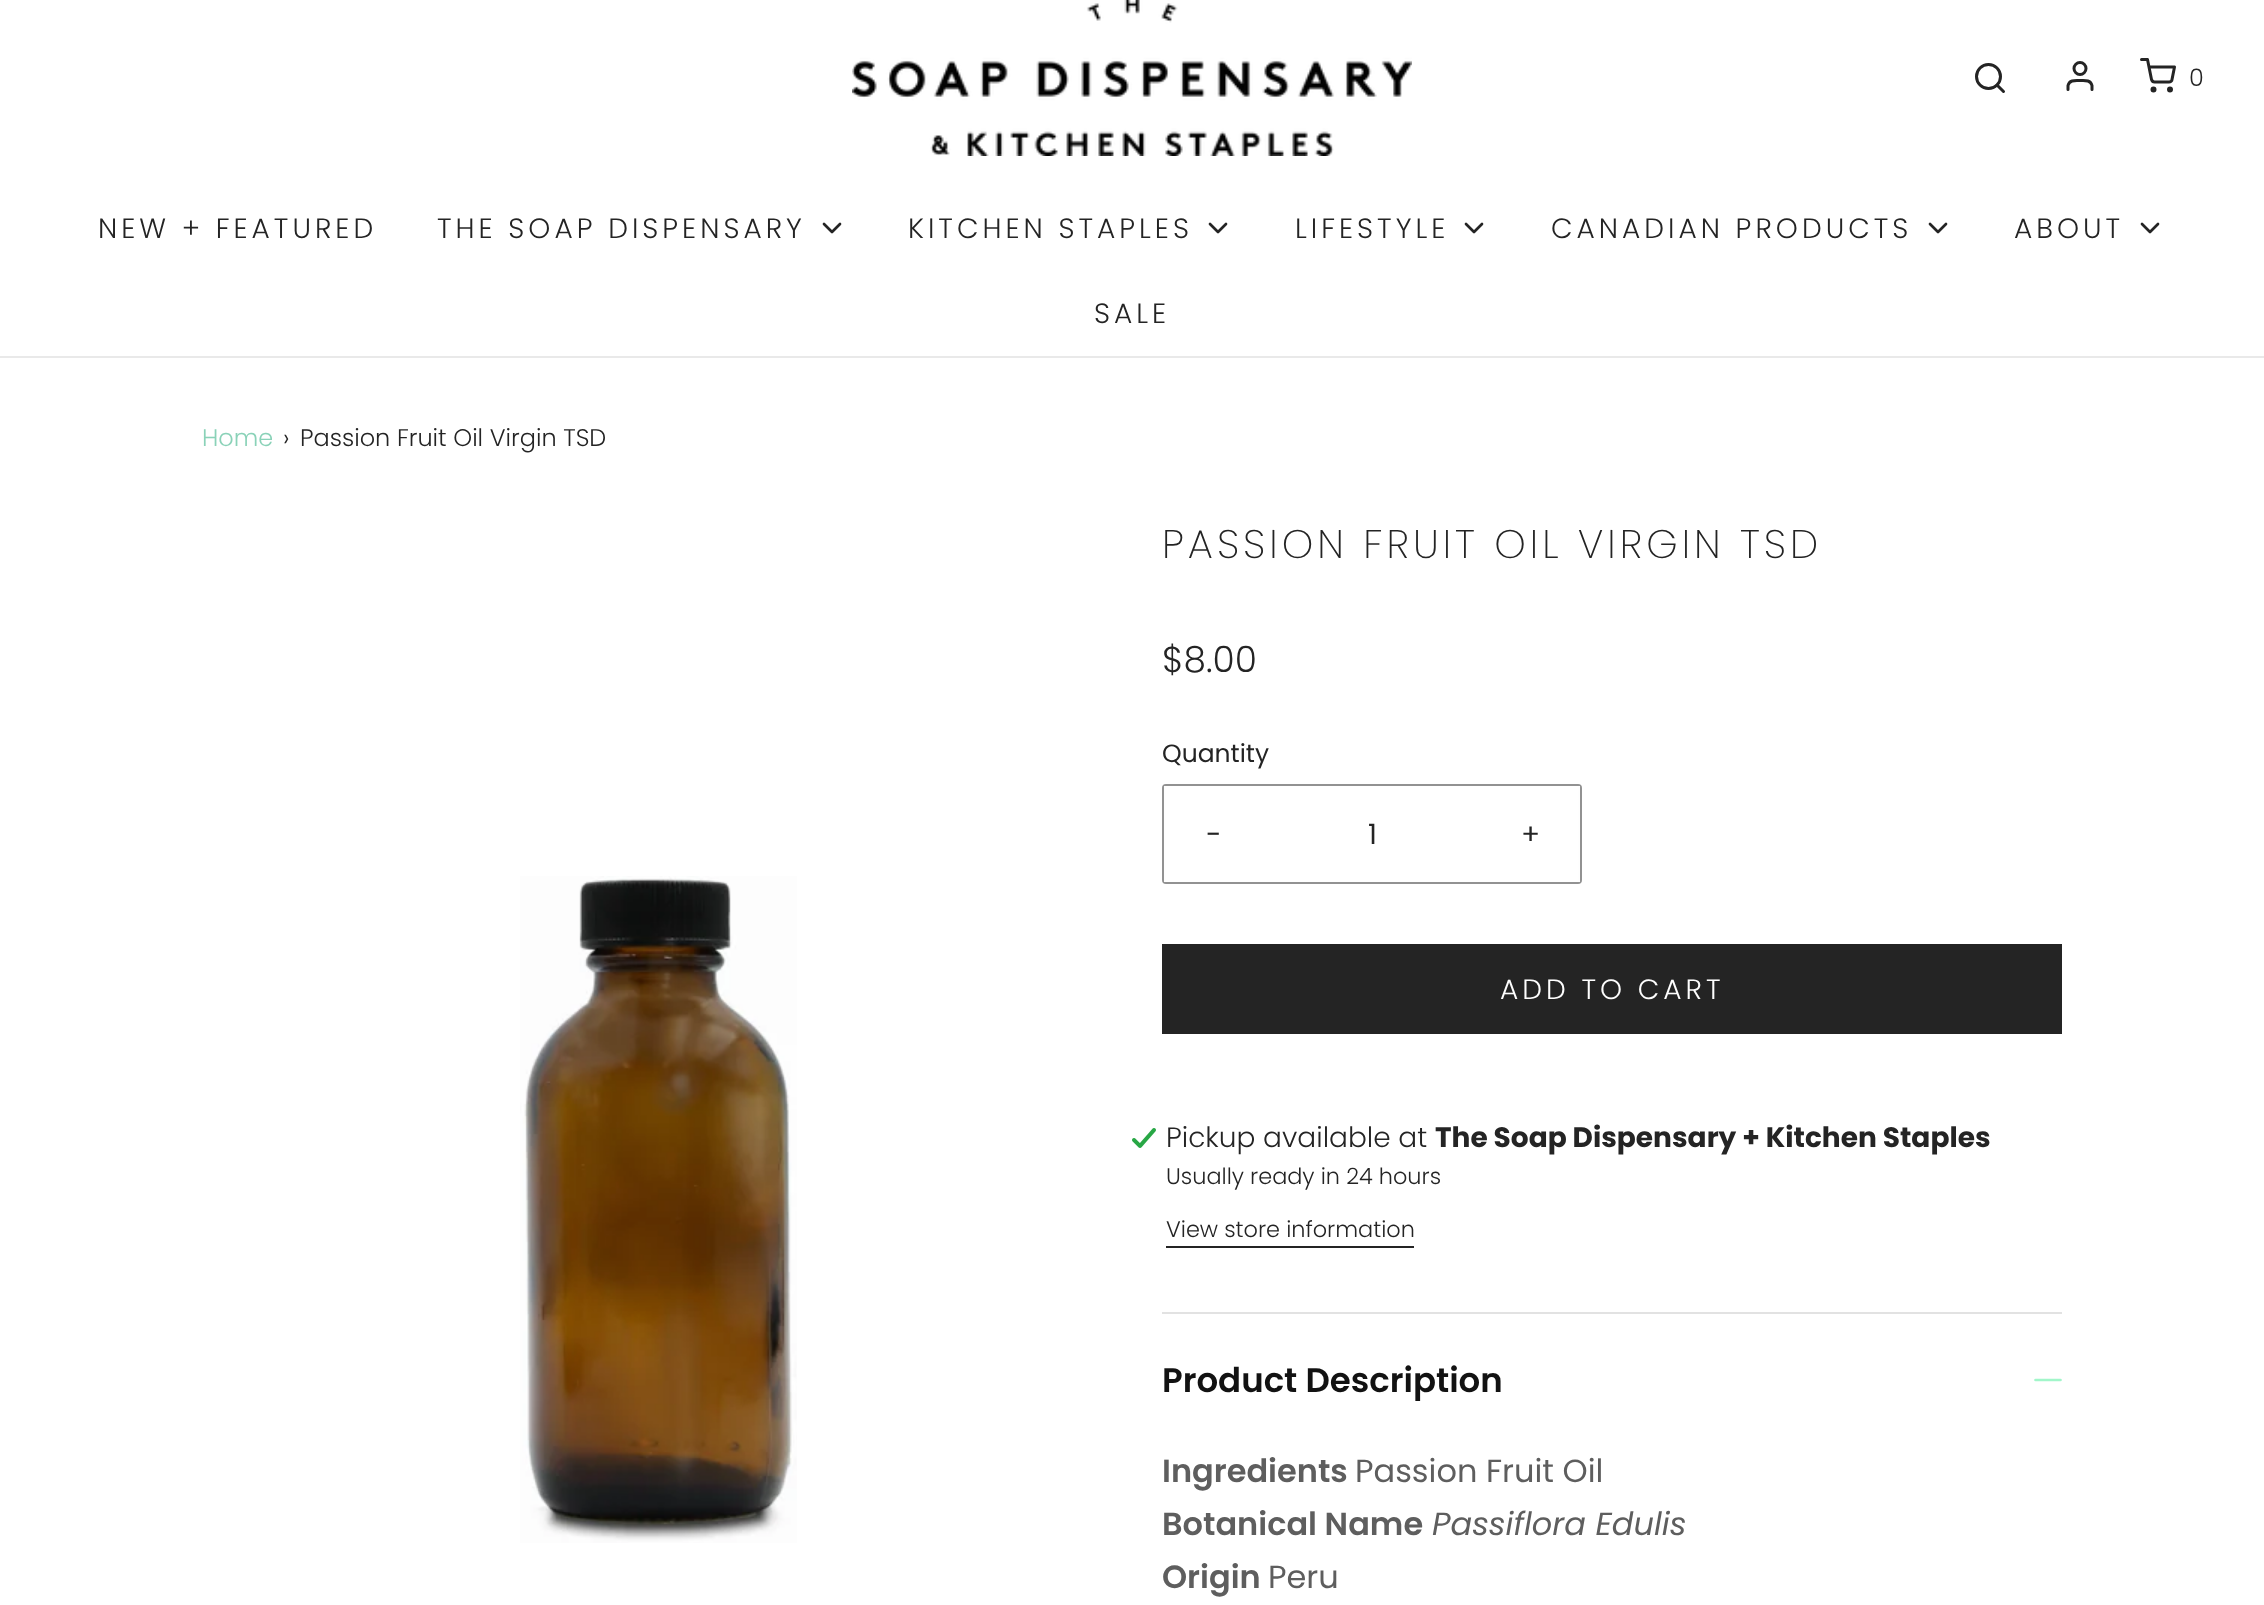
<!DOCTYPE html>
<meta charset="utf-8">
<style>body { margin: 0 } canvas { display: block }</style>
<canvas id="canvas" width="2264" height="1605"></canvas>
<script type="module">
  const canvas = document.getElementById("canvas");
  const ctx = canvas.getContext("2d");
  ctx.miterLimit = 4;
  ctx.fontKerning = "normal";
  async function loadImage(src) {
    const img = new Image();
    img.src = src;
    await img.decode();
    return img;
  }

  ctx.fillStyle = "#ffffff";
  ctx.fillRect(0, 0, 2264, 1605);
  ctx.fillStyle = "#e9e9e9";
  ctx.fillRect(0, 356, 2264, 2);
  ctx.drawImage(await loadImage("img1.png"), 852, 0, 560, 156);
  ctx.beginPath();
  ctx.arc(1988.5, 76.5, 12, 0, Math.PI * 2);
  ctx.strokeStyle = "#242424";
  ctx.lineWidth = 3;
  ctx.stroke();
  ctx.beginPath();
  ctx.moveTo(2003.5, 91.5);
  ctx.lineTo(1997, 85);
  ctx.lineCap = "round";
  ctx.lineJoin = "round";
  ctx.stroke();
  ctx.beginPath();
  ctx.moveTo(2092, 89.5);
  ctx.lineTo(2092, 85.5);
  ctx.bezierCurveTo(2090.5, 79.5, 2084.5, 80.5, 2080, 80.5);
  ctx.bezierCurveTo(2075.5, 80.5, 2069.5, 79.5, 2068, 85.5);
  ctx.lineTo(2068, 89.5);
  ctx.stroke();
  ctx.beginPath();
  ctx.arc(2080, 68.5, 6, 0, Math.PI * 2);
  ctx.stroke();
  ctx.beginPath();
  ctx.arc(2153.5, 89.5, 1.5, 0, Math.PI * 2);
  ctx.stroke();
  ctx.beginPath();
  ctx.arc(2170, 89.5, 1.5, 0, Math.PI * 2);
  ctx.stroke();
  ctx.beginPath();
  ctx.moveTo(2141.5, 59.5);
  ctx.lineTo(2147.5, 59.5);
  ctx.lineTo(2151.5, 79.5);
  ctx.bezierCurveTo(2152, 81, 2153, 82, 2154.5, 82);
  ctx.lineTo(2169, 82);
  ctx.bezierCurveTo(2170.5, 82, 2172, 81, 2172, 79.5);
  ctx.lineTo(2174.5, 67);
  ctx.lineTo(2149, 67);
  ctx.stroke();
  ctx.font = "300 24px Poppins";
  ctx.fillStyle = "#242424";
  ctx.fillText("0", 2189, 86);
  ctx.letterSpacing = "4px";
  ctx.font = "300 28px Poppins";
  ctx.fillText("NEW + FEATURED", 98, 238);
  ctx.fillText("THE SOAP DISPENSARY", 437, 238);
  ctx.beginPath();
  ctx.moveTo(824, 224);
  ctx.lineTo(832, 232);
  ctx.lineTo(840, 224);
  ctx.lineWidth = 2.7;
  ctx.stroke();
  ctx.fillText("KITCHEN STAPLES", 908, 238);
  ctx.beginPath();
  ctx.moveTo(1210, 224);
  ctx.lineTo(1218, 232);
  ctx.lineTo(1226, 224);
  ctx.stroke();
  ctx.fillText("LIFESTYLE", 1295, 238);
  ctx.beginPath();
  ctx.moveTo(1466, 224);
  ctx.lineTo(1474, 232);
  ctx.lineTo(1482, 224);
  ctx.stroke();
  ctx.fillText("CANADIAN PRODUCTS", 1551, 238);
  ctx.beginPath();
  ctx.moveTo(1930, 224);
  ctx.lineTo(1938, 232);
  ctx.lineTo(1946, 224);
  ctx.stroke();
  ctx.fillText("ABOUT", 2014, 238);
  ctx.beginPath();
  ctx.moveTo(2142, 224);
  ctx.lineTo(2150, 232);
  ctx.lineTo(2158, 224);
  ctx.stroke();
  ctx.fillText("SALE", 1094, 323);
  ctx.letterSpacing = "0px";
  ctx.font = "300 24px Poppins";
  ctx.fillStyle = "#8ad2b8";
  ctx.fillText("Home", 202, 446);
  ctx.fillStyle = "#242424";
  ctx.fillText("›", 283, 446);
  ctx.fillText("Passion Fruit Oil Virgin TSD", 300, 446);
  ctx.drawImage(await loadImage("img2.png"), 520, 876, 277, 667);
  ctx.letterSpacing = "4px";
  ctx.font = "300 40px 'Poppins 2'";
  ctx.fillText("PASSION FRUIT OIL VIRGIN TSD", 1162, 558);
  ctx.letterSpacing = "0px";
  ctx.font = "300 36px Poppins";
  ctx.fillText("$8.00", 1162, 672);
  ctx.font = "25px Poppins";
  ctx.fillText("Quantity", 1162, 762);
  ctx.beginPath();
  ctx.roundRect(1163, 785, 418, 98, 3);
  ctx.strokeStyle = "#929292";
  ctx.lineWidth = 2;
  ctx.lineJoin = "miter";
  ctx.stroke();
  ctx.fillStyle = "#fefefe";
  ctx.fillRect(1164, 786, 2, 96);
  ctx.font = "28px Poppins";
  ctx.fillStyle = "#242424";
  ctx.fillText("-", 1206, 844);
  ctx.fillText("1", 1368, 844);
  ctx.fillStyle = "#fefefe";
  ctx.fillRect(1578, 786, 2, 96);
  ctx.fillStyle = "#242424";
  ctx.fillText("+", 1521, 844);
  ctx.fillRect(1162, 944, 900, 90);
  ctx.letterSpacing = "4px";
  ctx.font = "300 28px Poppins";
  ctx.fillStyle = "#fefefe";
  ctx.fillText("ADD TO CART", 1500, 999);
  ctx.drawImage(await loadImage("img3.png"), 1132, 1128, 24, 20);
  ctx.letterSpacing = "0px";
  ctx.fillStyle = "#242424";
  ctx.fillText("Pickup available at", 1166, 1147);
  ctx.font = "bold 28px Poppins";
  ctx.fillText("The Soap Dispensary + Kitchen Staples", 1435, 1147);
  ctx.font = "300 22.4px Poppins";
  ctx.fillText("Usually ready in 24 hours", 1166, 1184);
  ctx.fillText("View store information", 1166, 1237);
  ctx.fillRect(1166, 1246, 248, 2);
  ctx.fillStyle = "#e2e2e2";
  ctx.fillRect(1162, 1312, 900, 2);
  ctx.font = "600 34px Poppins";
  ctx.fillStyle = "#121212";
  ctx.fillText("Product Description", 1162, 1392);
  ctx.beginPath();
  ctx.moveTo(2035.5, 1380);
  ctx.lineTo(2060.5, 1380);
  ctx.strokeStyle = "#a2f6ca";
  ctx.lineWidth = 2.6;
  ctx.stroke();
  ctx.font = "600 32px Poppins";
  ctx.fillStyle = "#5e5e5e";
  ctx.fillText("Ingredients", 1162, 1482);
  ctx.font = "32px Poppins";
  ctx.fillText("Passion Fruit Oil", 1355, 1482);
  ctx.font = "600 32px Poppins";
  ctx.fillText("Botanical Name", 1162, 1535);
  ctx.font = "italic 32px Poppins";
  ctx.fillText("Passiflora Edulis", 1432, 1535);
  ctx.font = "600 32px Poppins";
  ctx.fillText("Origin", 1162, 1588);
  ctx.font = "32px Poppins";
  ctx.fillText("Peru", 1268, 1588);
</script>
